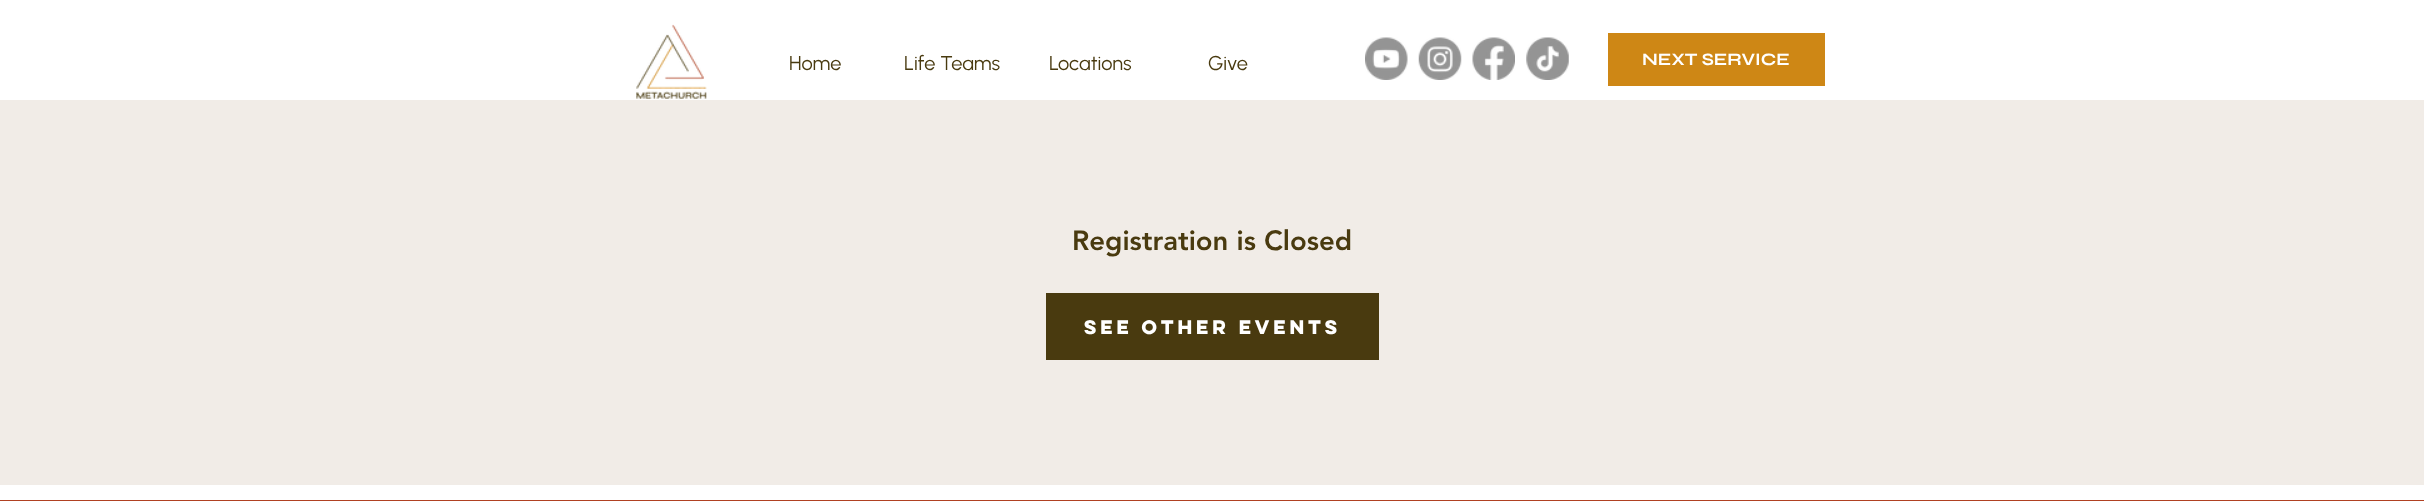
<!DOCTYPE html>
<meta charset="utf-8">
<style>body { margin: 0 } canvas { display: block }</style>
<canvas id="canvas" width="2424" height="501"></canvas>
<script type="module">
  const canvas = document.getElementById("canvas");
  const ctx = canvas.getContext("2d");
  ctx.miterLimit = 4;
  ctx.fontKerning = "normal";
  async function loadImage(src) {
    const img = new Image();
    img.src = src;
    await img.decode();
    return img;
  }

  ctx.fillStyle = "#ffffff";
  ctx.fillRect(0, 0, 2424, 501);
  ctx.drawImage(await loadImage("img1.png"), 636, 24, 71, 75);
  ctx.font = "20px Urbanist";
  ctx.fillStyle = "#493a0f";
  ctx.fillText("Home", 789, 70);
  ctx.fillText("Life Teams", 904, 70);
  ctx.fillText("Locations", 1049, 70);
  ctx.fillText("Give", 1208, 70);
  ctx.drawImage(await loadImage("img2.png"), 1365, 37, 43, 43);
  ctx.drawImage(await loadImage("img3.png"), 1418, 37, 44, 43);
  ctx.drawImage(await loadImage("img4.png"), 1472, 37, 43, 43);
  ctx.drawImage(await loadImage("img5.png"), 1526, 37, 43, 43);
  ctx.fillStyle = "#ce8715";
  ctx.fillRect(1608, 33, 217, 53);
  ctx.font = "bold 17.5px Syne";
  ctx.fillStyle = "#ffffff";
  ctx.fillText("NEXT SERVICE", 1642, 65);
  ctx.fillStyle = "#f1ece7";
  ctx.fillRect(0, 100, 2424, 385);
  ctx.font = "900 27.5px 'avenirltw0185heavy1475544'";
  ctx.fillStyle = "#493a0f";
  ctx.fillText("Registration is Closed", 1072, 250);
  ctx.fillRect(1046, 293, 333, 67);
  ctx.font = "bold 17.5px 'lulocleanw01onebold'";
  ctx.fillStyle = "#ffffff";
  ctx.fillText("See other events", 1084, 334);
  ctx.fillStyle = "#b04122";
  ctx.fillRect(0, 500, 2424, 1);
</script>
